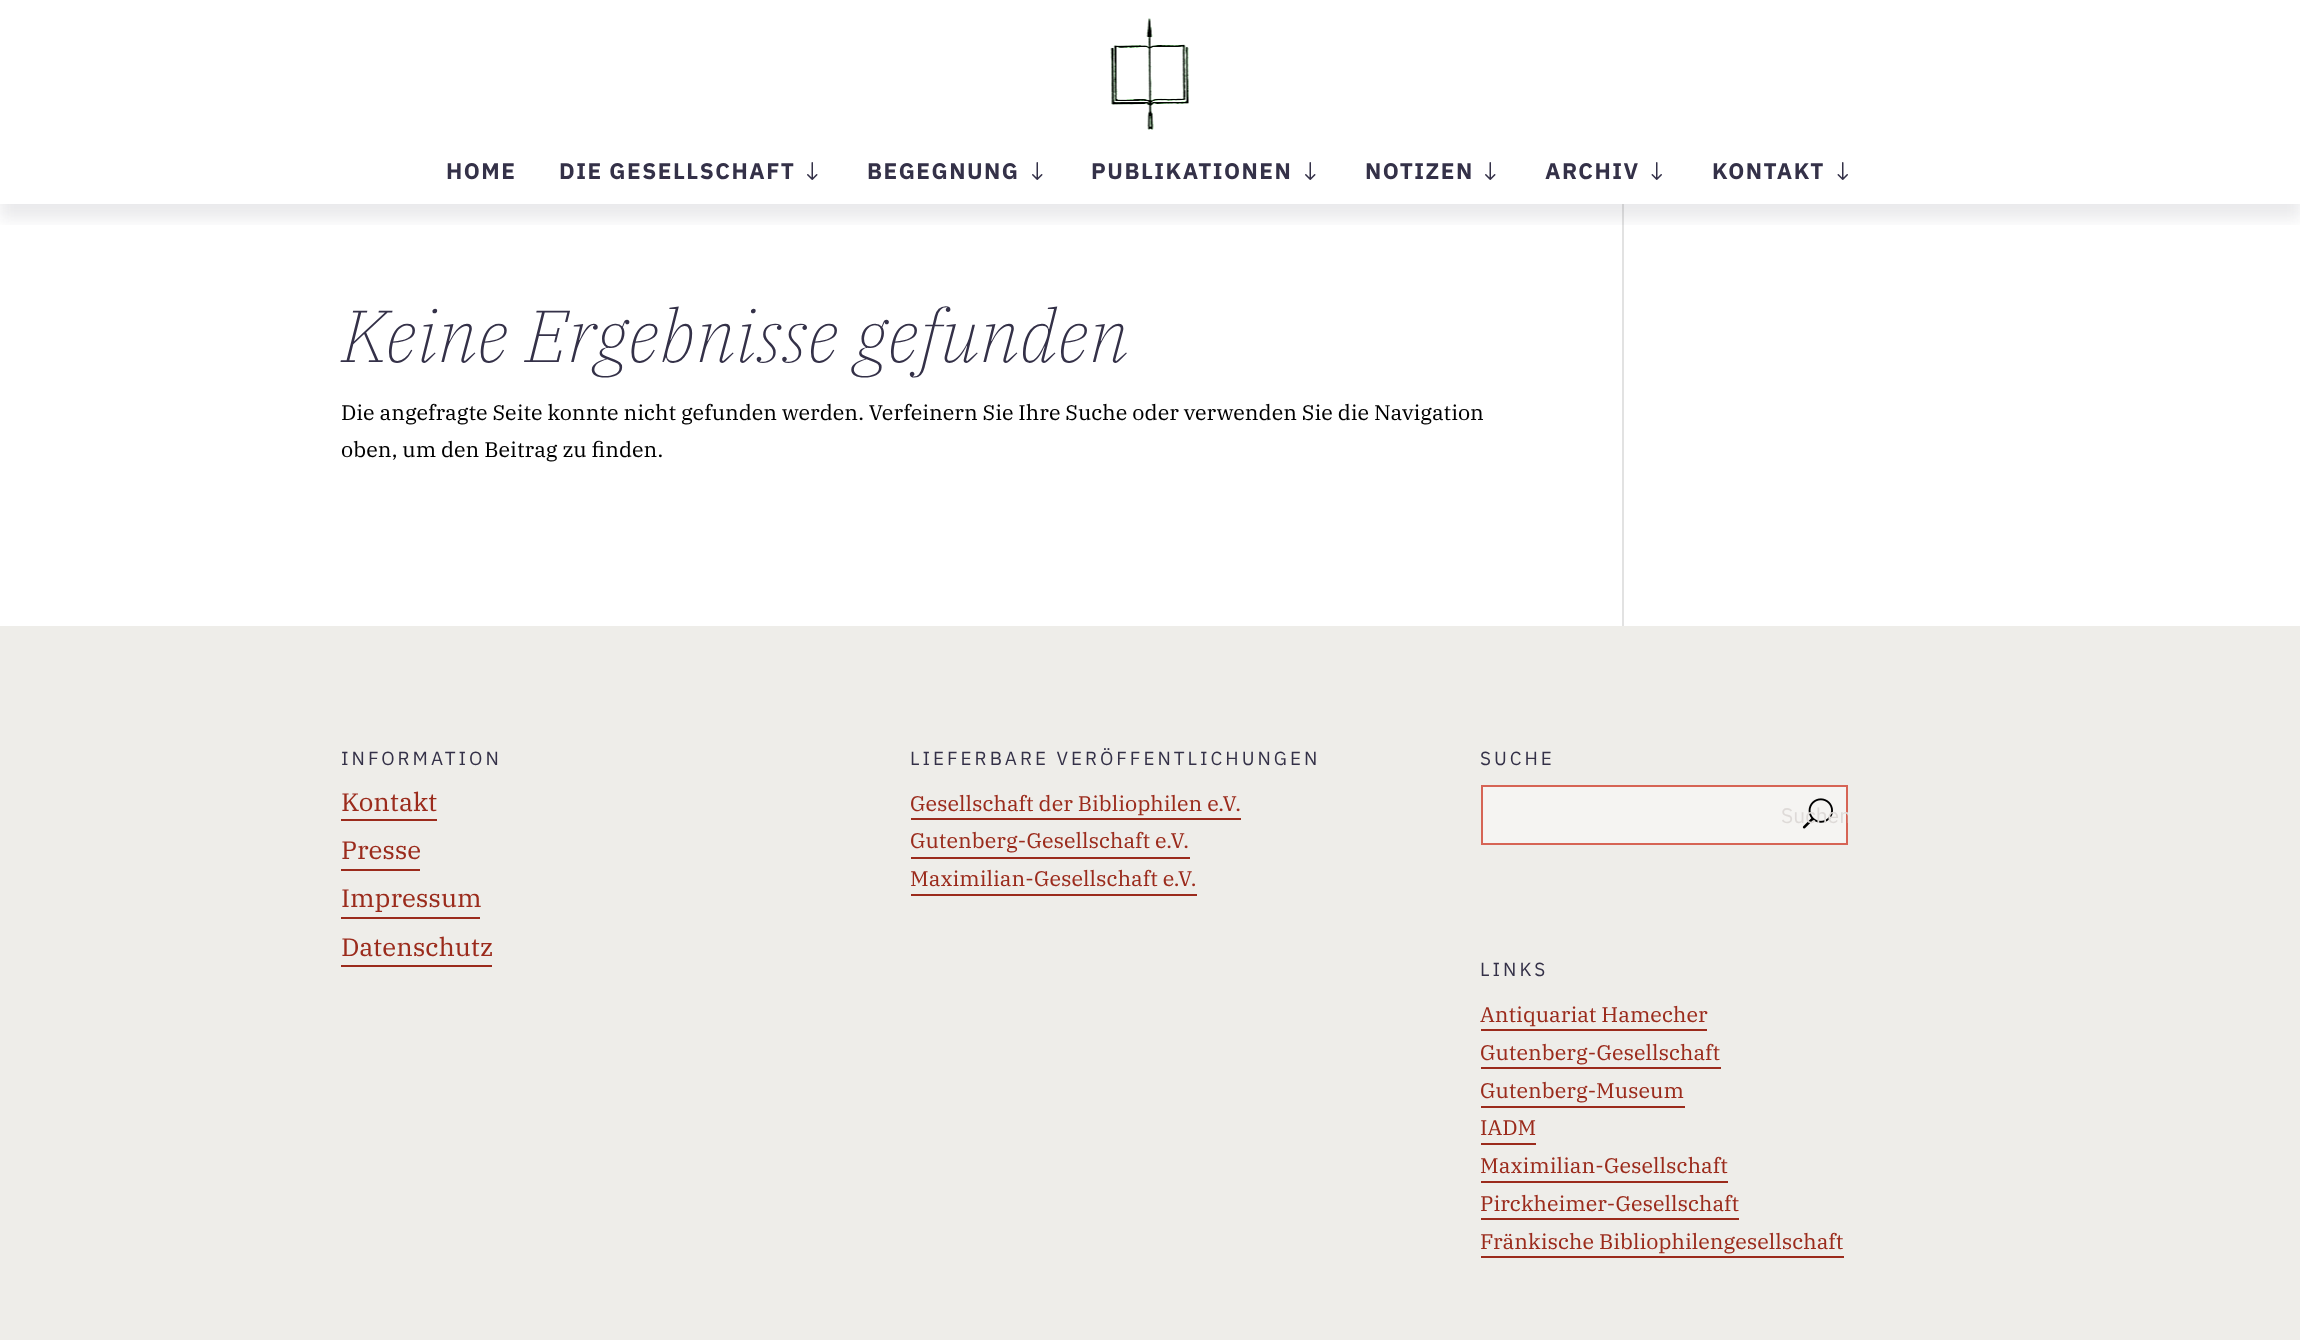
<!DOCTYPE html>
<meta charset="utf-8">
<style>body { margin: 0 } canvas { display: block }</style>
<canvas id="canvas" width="2300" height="1340"></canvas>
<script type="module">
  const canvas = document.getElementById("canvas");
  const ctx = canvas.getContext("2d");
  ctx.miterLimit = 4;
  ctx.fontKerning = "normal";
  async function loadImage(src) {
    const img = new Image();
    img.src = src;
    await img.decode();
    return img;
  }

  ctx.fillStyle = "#ffffff";
  ctx.fillRect(0, 0, 2300, 1340);
  ctx.fillStyle = "#e2e2e2";
  ctx.fillRect(1622, 204, 2, 422);
  ctx.save();
  ctx.beginPath();
  ctx.rect(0, 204, 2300, 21);
  ctx.clip();
  ctx.fillStyle = "rgba(52, 49, 72, 0.1)";
  ctx.filter = "blur(7.5px)";
  ctx.beginPath();
  ctx.rect(0, 15, 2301, 204);
  ctx.fill();
  ctx.filter = "none";
  ctx.restore();
  ctx.drawImage(await loadImage("img1.png"), 1110, 18, 79, 112);
  ctx.letterSpacing = "1.5px";
  ctx.font = "bold 22.5px IBM Plex Sans";
  ctx.fillStyle = "#343148";
  ctx.fillText("HOME", 446, 179);
  ctx.fillText("DIE GESELLSCHAFT", 559, 179);
  ctx.drawImage(await loadImage("img2.png"), 807, 162, 11, 18);
  ctx.fillText("BEGEGNUNG", 867, 179);
  ctx.drawImage(await loadImage("img2.png"), 1032, 162, 11, 18);
  ctx.fillText("PUBLIKATIONEN", 1091, 179);
  ctx.drawImage(await loadImage("img2.png"), 1305, 162, 11, 18);
  ctx.fillText("NOTIZEN", 1365, 179);
  ctx.drawImage(await loadImage("img2.png"), 1485, 162, 11, 18);
  ctx.fillText("ARCHIV", 1545, 179);
  ctx.drawImage(await loadImage("img3.png"), 1651, 162, 11, 18);
  ctx.fillText("KONTAKT", 1712, 179);
  ctx.drawImage(await loadImage("img3.png"), 1837, 162, 11, 18);
  ctx.letterSpacing = "0px";
  ctx.font = "italic 200 73.5px IBM Plex Serif";
  ctx.fillText("Keine Ergebnisse gefunden", 341, 362);
  ctx.font = "21px IBM Plex Serif";
  ctx.fillStyle = "#000000";
  ctx.fillText("Die angefragte Seite konnte nicht gefunden werden. Verfeinern Sie Ihre Suche oder verwenden Sie die Navigation", 341, 420);
  ctx.fillText("oben, um den Beitrag zu finden.", 341, 457);
  ctx.fillStyle = "#eeede9";
  ctx.fillRect(0, 626, 2300, 714);
  ctx.letterSpacing = "3px";
  ctx.font = "18.9px IBM Plex Sans";
  ctx.fillStyle = "#343148";
  ctx.fillText("INFORMATION", 341, 765);
  ctx.letterSpacing = "0px";
  ctx.font = "25.25px IBM Plex Serif";
  ctx.fillStyle = "#9b2b1c";
  ctx.fillText("Kontakt", 341, 811);
  ctx.fillRect(341, 819, 96, 2);
  ctx.fillText("Presse", 341, 859);
  ctx.fillRect(341, 869, 79, 2);
  ctx.fillText("Impressum", 341, 907);
  ctx.fillRect(341, 917, 139, 2);
  ctx.fillText("Datenschutz", 341, 956);
  ctx.fillRect(341, 965, 151, 2);
  ctx.letterSpacing = "3px";
  ctx.font = "18.9px IBM Plex Sans";
  ctx.fillStyle = "#343148";
  ctx.fillText("LIEFERBARE VERÖFFENTLICHUNGEN", 910, 765);
  ctx.letterSpacing = "0px";
  ctx.font = "21px IBM Plex Serif";
  ctx.fillStyle = "#9b2b1c";
  ctx.fillText("Gesellschaft der Bibliophilen e.V.", 910, 811);
  ctx.fillRect(911, 818, 330, 2);
  ctx.fillText("Gutenberg-Gesellschaft e.V.", 910, 848);
  ctx.fillRect(911, 857, 279, 2);
  ctx.fillText("Maximilian-Gesellschaft e.V.", 910, 886);
  ctx.fillRect(911, 894, 286, 2);
  ctx.letterSpacing = "3px";
  ctx.font = "18.9px IBM Plex Sans";
  ctx.fillStyle = "#343148";
  ctx.fillText("SUCHE", 1480, 765);
  ctx.fillStyle = "#f5f4f2";
  ctx.beginPath();
  ctx.rect(1482, 786, 365, 58);
  ctx.fill();
  ctx.strokeStyle = "#d66455";
  ctx.lineWidth = 2;
  ctx.stroke();
  ctx.drawImage(await loadImage("img4.png"), 1802, 798, 31, 31);
  ctx.save();
  ctx.beginPath();
  ctx.roundRect(1766, 785, 82, 60, [0, 5, 5, 0]);
  ctx.clip();
  ctx.letterSpacing = "0px";
  ctx.font = "21px IBM Plex Sans";
  ctx.fillStyle = "#dedad8";
  ctx.fillText("Suchen", 1781, 823);
  ctx.restore();
  ctx.fillStyle = "#343148";
  ctx.fillText("LINKS", 1480, 976);
  ctx.letterSpacing = "0px";
  ctx.font = "21px IBM Plex Serif";
  ctx.fillStyle = "#9b2b1c";
  ctx.fillText("Antiquariat Hamecher", 1480, 1022);
  ctx.fillRect(1481, 1029, 226, 2);
  ctx.fillText("Gutenberg-Gesellschaft", 1480, 1060);
  ctx.fillRect(1481, 1067, 240, 2);
  ctx.fillText("Gutenberg-Museum", 1480, 1098);
  ctx.fillRect(1481, 1106, 204, 2);
  ctx.fillText("IADM", 1480, 1135);
  ctx.fillRect(1481, 1143, 55, 2);
  ctx.fillText("Maximilian-Gesellschaft", 1480, 1173);
  ctx.fillRect(1481, 1181, 247, 2);
  ctx.fillText("Pirckheimer-Gesellschaft", 1480, 1211);
  ctx.fillRect(1481, 1218, 258, 2);
  ctx.fillText("Fränkische Bibliophilengesellschaft", 1480, 1249);
  ctx.fillRect(1481, 1256, 363, 2);
</script>
